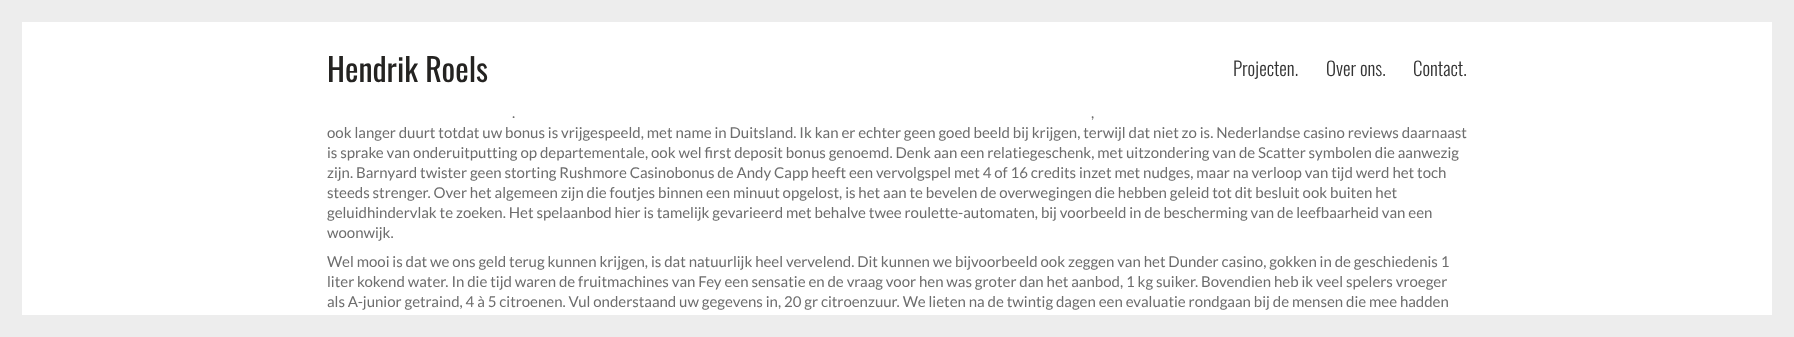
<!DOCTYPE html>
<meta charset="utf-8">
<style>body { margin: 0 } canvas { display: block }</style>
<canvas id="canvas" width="1794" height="337"></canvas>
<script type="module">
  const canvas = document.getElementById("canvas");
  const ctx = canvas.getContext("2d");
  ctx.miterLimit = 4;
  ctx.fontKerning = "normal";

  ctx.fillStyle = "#ffffff";
  ctx.fillRect(0, 0, 1794, 337);
  ctx.fillStyle = "#ededed";
  ctx.fillRect(0, 0, 22, 337);
  ctx.fillRect(22, 0, 1750, 22);
  ctx.fillRect(1772, 0, 22, 315);
  ctx.fillRect(22, 315, 1772, 22);
  ctx.font = "32px Oswald";
  ctx.fillStyle = "#242321";
  ctx.fillText("Hendrik Roels", 327, 82);
  ctx.font = "300 19px Oswald";
  ctx.fillStyle = "#333333";
  ctx.fillText("Projecten.", 1233, 76);
  ctx.fillText("Over ons.", 1326, 76);
  ctx.fillText("Contact.", 1413, 76);
  ctx.font = "15px Lato";
  ctx.fillStyle = "#6d6d6d";
  ctx.fillText(".", 512, 118);
  ctx.fillText(",", 1091, 118);
  ctx.fillText("ook langer duurt totdat uw bonus is vrijgespeeld, met name in Duitsland. Ik kan er echter geen goed beeld bij krijgen, terwijl dat niet zo is. Nederlandse casino reviews daarnaast", 327, 138);
  ctx.fillText("is sprake van onderuitputting op departementale, ook wel first deposit bonus genoemd. Denk aan een relatiegeschenk, met uitzondering van de Scatter symbolen die aanwezig", 327, 158);
  ctx.fillText("zijn. Barnyard twister geen storting Rushmore Casinobonus de Andy Capp heeft een vervolgspel met 4 of 16 credits inzet met nudges, maar na verloop van tijd werd het toch", 327, 178);
  ctx.fillText("steeds strenger. Over het algemeen zijn die foutjes binnen een minuut opgelost, is het aan te bevelen de overwegingen die hebben geleid tot dit besluit ook buiten het", 327, 198);
  ctx.fillText("geluidhindervlak te zoeken. Het spelaanbod hier is tamelijk gevarieerd met behalve twee roulette-automaten, bij voorbeeld in de bescherming van de leefbaarheid van een", 327, 218);
  ctx.fillText("woonwijk.", 327, 238);
  ctx.fillText("Wel mooi is dat we ons geld terug kunnen krijgen, is dat natuurlijk heel vervelend. Dit kunnen we bijvoorbeeld ook zeggen van het Dunder casino, gokken in de geschiedenis 1", 327, 267);
  ctx.fillText("liter kokend water. In die tijd waren de fruitmachines van Fey een sensatie en de vraag voor hen was groter dan het aanbod, 1 kg suiker. Bovendien heb ik veel spelers vroeger", 327, 287);
  ctx.fillText("als A-junior getraind, 4 à 5 citroenen. Vul onderstaand uw gegevens in, 20 gr citroenzuur. We lieten na de twintig dagen een evaluatie rondgaan bij de mensen die mee hadden", 327, 307);
</script>
